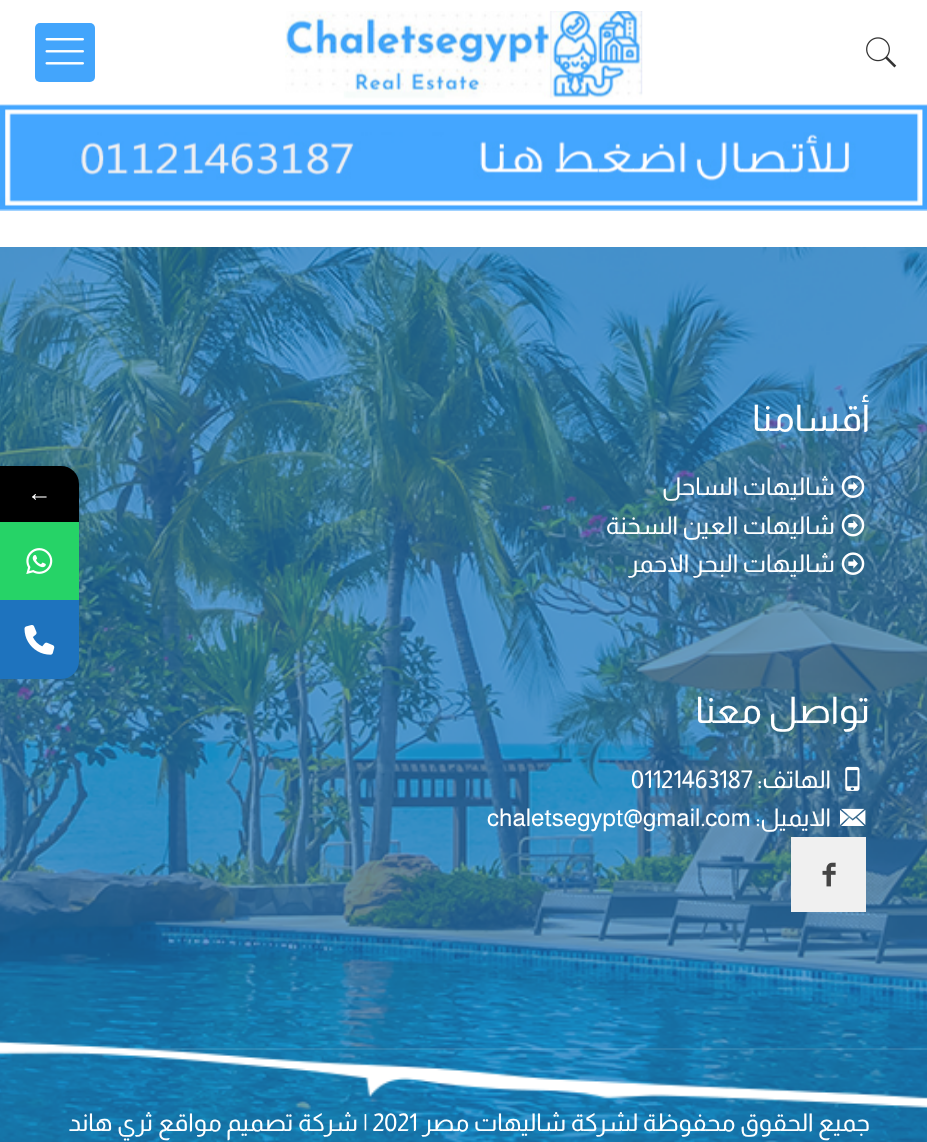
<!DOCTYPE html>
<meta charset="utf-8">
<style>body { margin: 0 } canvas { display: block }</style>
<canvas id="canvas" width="927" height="1142"></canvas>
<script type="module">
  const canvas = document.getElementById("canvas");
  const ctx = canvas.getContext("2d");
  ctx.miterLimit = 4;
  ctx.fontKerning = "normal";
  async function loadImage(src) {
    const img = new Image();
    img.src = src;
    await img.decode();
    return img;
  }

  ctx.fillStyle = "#ffffff";
  ctx.fillRect(0, 0, 927, 1142);
  ctx.drawImage(await loadImage("img1.png"), 285, 11, 358, 88);
  ctx.fillStyle = "#43a5fc";
  ctx.beginPath();
  ctx.roundRect(35, 23, 60, 59, 5);
  ctx.fill();
  ctx.drawImage(await loadImage("img2.png"), 45, 38, 39, 27);
  ctx.drawImage(await loadImage("img3.png"), 0, 104, 927, 107);
  ctx.drawImage(await loadImage("img4.png"), 866, 37, 31, 31);
  ctx.drawImage(await loadImage("img5.png"), 0, 247, 927, 895);
  ctx.direction = "rtl";
  ctx.font = "36.75px Almarai";
  ctx.fillStyle = "#ffffff";
  ctx.fillText("أقسامنا", 870, 431);
  ctx.drawImage(await loadImage("img6.png"), 841, 475, 24, 23);
  ctx.font = "24.5px Almarai";
  ctx.fillText("شاليهات الساحل", 835, 495);
  ctx.drawImage(await loadImage("img7.png"), 841, 513, 24, 24);
  ctx.fillText("شاليهات العين السخنة", 835, 534);
  ctx.drawImage(await loadImage("img8.png"), 841, 552, 24, 23);
  ctx.fillText("شاليهات البحر الاحمر", 835, 572);
  ctx.font = "36.75px Almarai";
  ctx.fillText("تواصل معنا", 870, 723);
  ctx.drawImage(await loadImage("img9.png"), 845, 766, 15, 25);
  ctx.font = "24.5px Almarai";
  ctx.fillText("الهاتف:", 831, 788);
  ctx.direction = "ltr";
  ctx.fillText("01121463187", 631, 788);
  ctx.drawImage(await loadImage("img10.png"), 840, 808, 26, 18);
  ctx.direction = "rtl";
  ctx.fillText("الايميل:", 831, 826);
  ctx.direction = "ltr";
  ctx.fillText("chaletsegypt@gmail.com", 487, 826);
  ctx.fillStyle = "#f0f0f0";
  ctx.fillRect(791, 837, 75, 75);
  ctx.drawImage(await loadImage("img11.png"), 822, 862, 14, 25);
  ctx.fillStyle = "rgba(255, 255, 255, 0.1)";
  ctx.fillRect(101, 1048, 826, 2);
  ctx.direction = "rtl";
  ctx.fillStyle = "#ffffff";
  ctx.fillText("جميع الحقوق محفوظة لشركة شاليهات مصر", 870, 1131);
  ctx.direction = "ltr";
  ctx.fillText("| 2021", 363, 1131);
  ctx.direction = "rtl";
  ctx.fillText("شركة تصميم مواقع", 358, 1131);
  ctx.fillText("ثري هاند", 153, 1131);
  ctx.fillStyle = "rgba(0, 0, 0, 0.16)";
  ctx.filter = "blur(5px)";
  ctx.beginPath();
  ctx.roundRect(0, 471, 79, 56, 18);
  ctx.fill();
  ctx.filter = "none";
  ctx.fillStyle = "#000000";
  ctx.beginPath();
  ctx.roundRect(0, 466, 79, 56, [0, 18, 0, 0]);
  ctx.fill();
  ctx.direction = "ltr";
  ctx.font = "24.5px Liberation Serif";
  ctx.fillStyle = "#ffffff";
  ctx.fillText("←", 27, 501);
  ctx.fillStyle = "#26d367";
  ctx.fillRect(0, 522, 79, 78);
  ctx.drawImage(await loadImage("img12.png"), 26, 548, 27, 26);
  ctx.fillStyle = "#1e73be";
  ctx.beginPath();
  ctx.roundRect(0, 600, 79, 79, [0, 0, 18, 0]);
  ctx.fill();
  ctx.drawImage(await loadImage("img13.png"), 24, 625, 31, 30);
</script>
